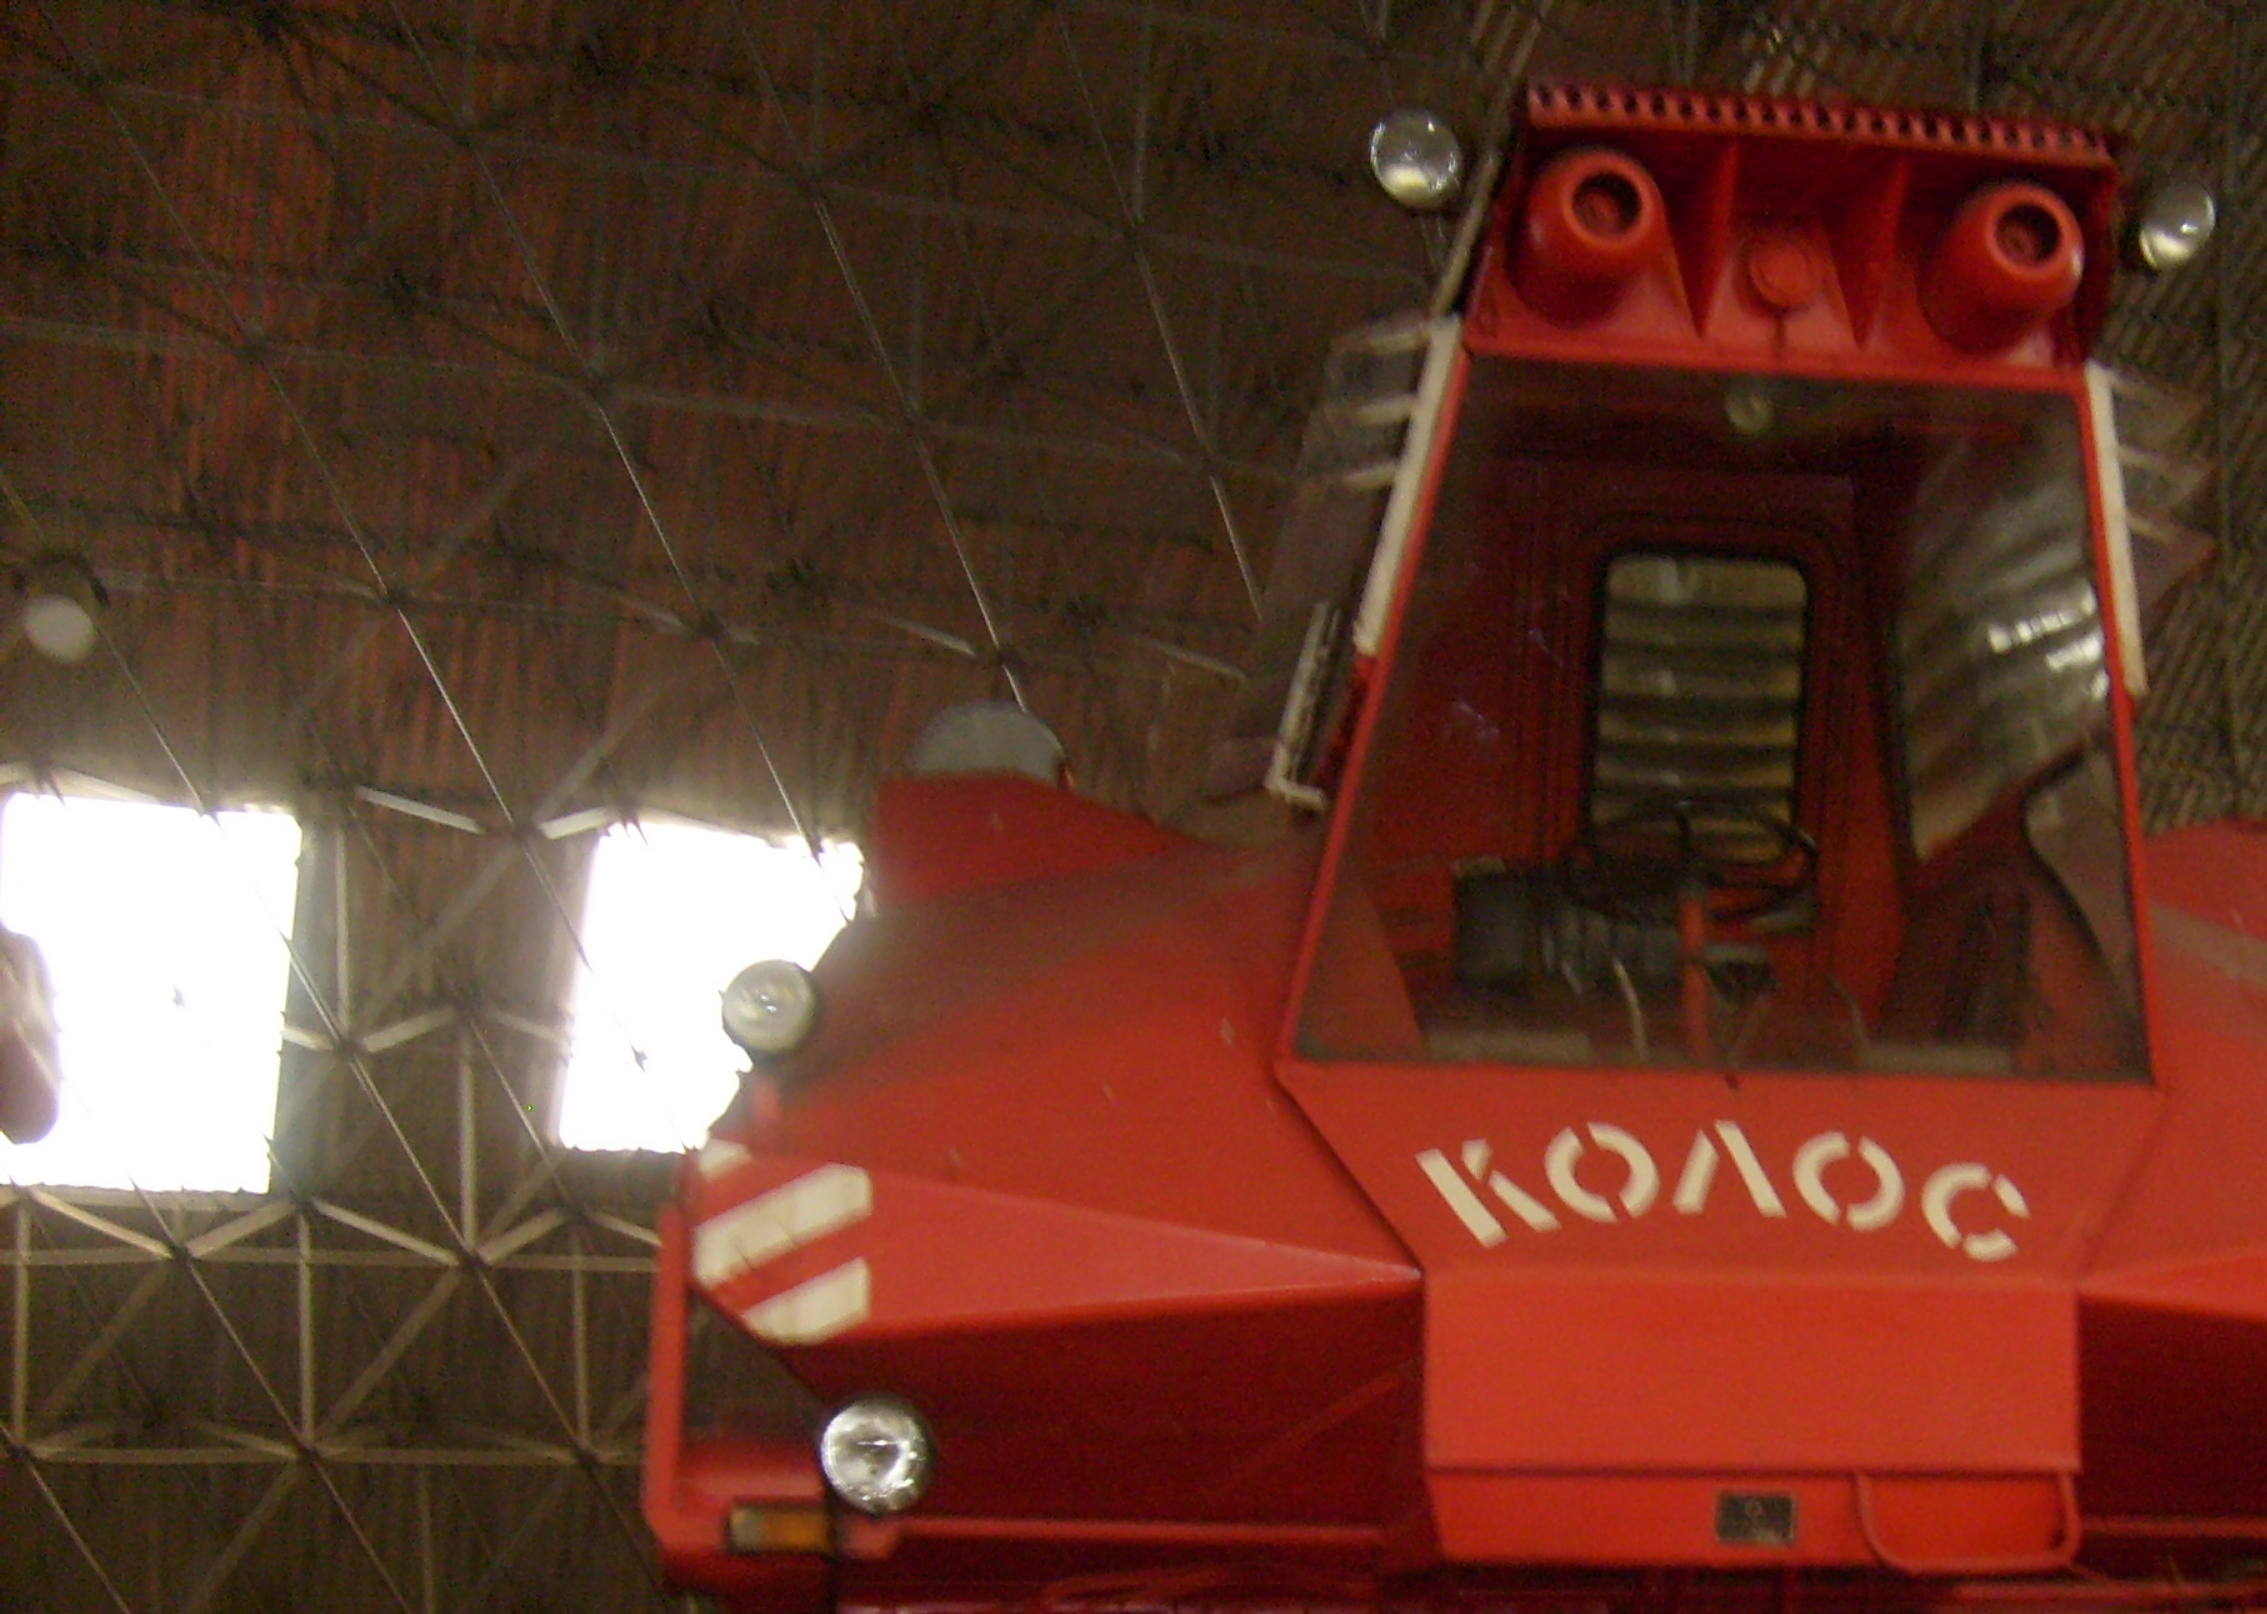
<!DOCTYPE html>
<meta charset="utf-8">
<style>body { margin: 0 } canvas { display: block }</style>
<canvas id="canvas" width="2267" height="1614"></canvas>
<script type="module">
  const canvas = document.getElementById("canvas");
  const ctx = canvas.getContext("2d");
  ctx.miterLimit = 4;
  ctx.fontKerning = "normal";
  async function loadImage(src) {
    const img = new Image();
    img.src = src;
    await img.decode();
    return img;
  }

  ctx.fillStyle = "#ffffff";
  ctx.fillRect(0, 0, 2267, 1614);
  ctx.drawImage(await loadImage("img1.png"), 0, 0, 2267, 1614);
</script>
